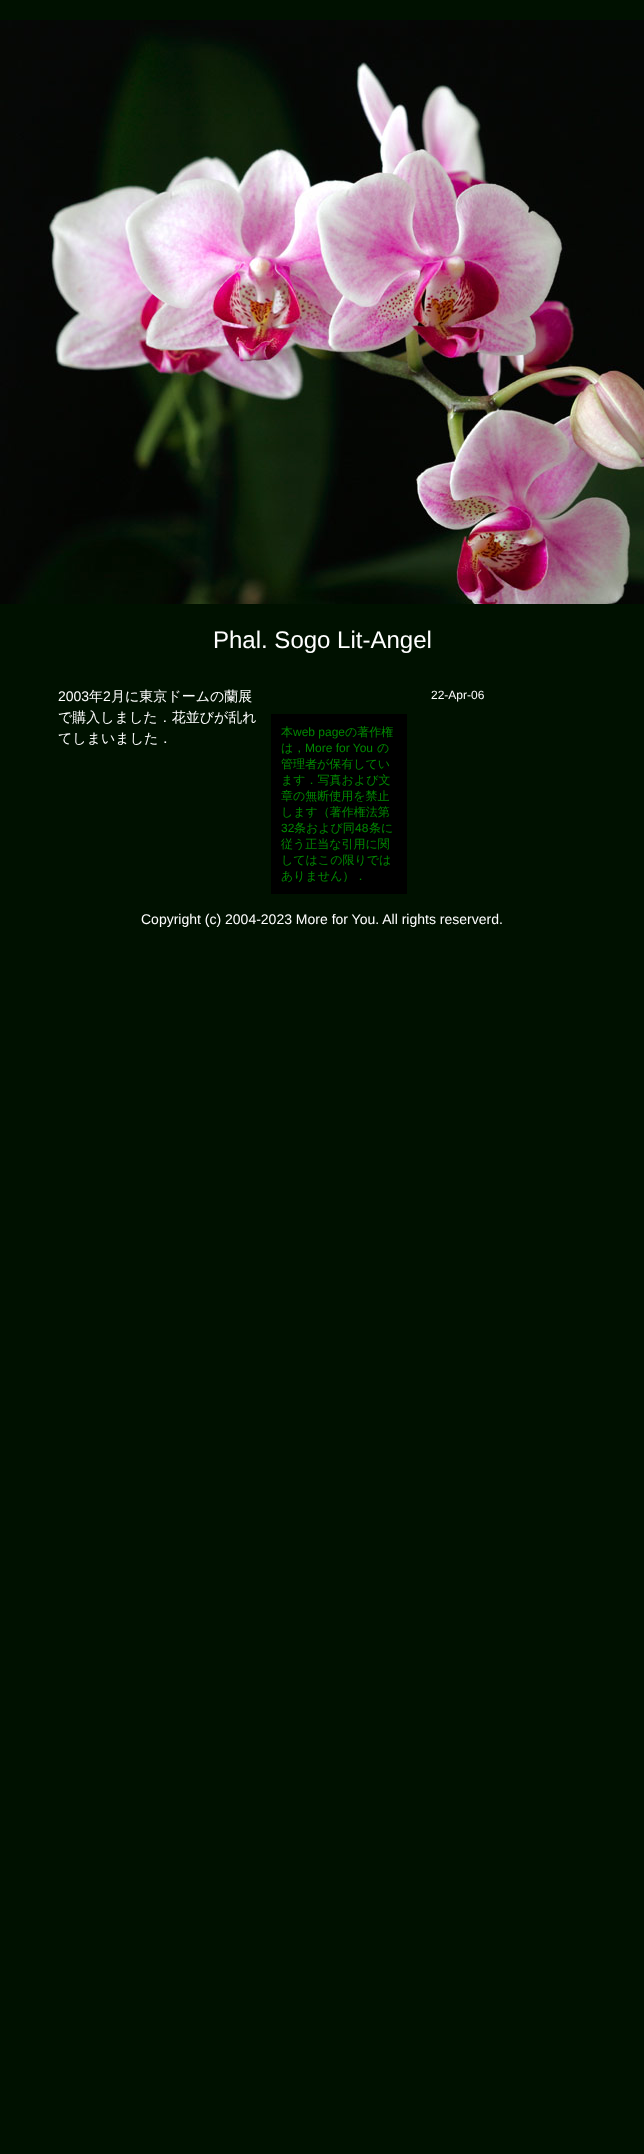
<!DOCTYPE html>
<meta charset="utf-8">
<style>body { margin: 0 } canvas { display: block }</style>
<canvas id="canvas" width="644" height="2154"></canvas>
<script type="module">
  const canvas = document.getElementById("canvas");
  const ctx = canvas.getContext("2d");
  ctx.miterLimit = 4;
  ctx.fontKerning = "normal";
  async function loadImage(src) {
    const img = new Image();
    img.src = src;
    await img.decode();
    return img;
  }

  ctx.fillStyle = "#001100";
  ctx.fillRect(0, 0, 644, 2154);
  ctx.drawImage(await loadImage("img1.png"), 0, 20, 644, 584);
  ctx.font = "24px Liberation Sans";
  ctx.fillStyle = "#ffffff";
  ctx.fillText("Phal. Sogo Lit-Angel", 213, 648);
  ctx.font = "14px Liberation Sans";
  ctx.fillText("2003", 58, 701);
  ctx.font = "500 14px WenQuanYi Zen Hei";
  ctx.fillText("年", 89, 701);
  ctx.font = "14px Liberation Sans";
  ctx.fillText("2", 103, 701);
  ctx.font = "500 14px WenQuanYi Zen Hei";
  ctx.fillText("月に東京ドームの蘭展", 111, 701);
  ctx.fillText("で購入しました．花並びが乱れ", 58, 722);
  ctx.fillText("てしまいました．", 58, 743);
  ctx.font = "12px Liberation Sans";
  ctx.fillText("22-Apr-06", 431, 699);
  ctx.fillStyle = "#000000";
  ctx.fillRect(271, 714, 136, 180);
  ctx.font = "500 12px WenQuanYi Zen Hei";
  ctx.fillStyle = "#008800";
  ctx.fillText("本", 281, 736);
  ctx.font = "12px Liberation Sans";
  ctx.fillText("web page", 293, 736);
  ctx.font = "500 12px WenQuanYi Zen Hei";
  ctx.fillText("の著作権", 345, 736);
  ctx.fillText("は，", 281, 752);
  ctx.font = "12px Liberation Sans";
  ctx.fillText("More for You", 305, 752);
  ctx.font = "500 12px WenQuanYi Zen Hei";
  ctx.fillText("の", 377, 752);
  ctx.fillText("管理者が保有してい", 281, 768);
  ctx.fillText("ます．写真および文", 281, 784);
  ctx.fillText("章の無断使用を禁止", 281, 800);
  ctx.fillText("します（著作権法第", 281, 816);
  ctx.font = "12px Liberation Sans";
  ctx.fillText("32", 281, 832);
  ctx.font = "500 12px WenQuanYi Zen Hei";
  ctx.fillText("条および同", 294, 832);
  ctx.font = "12px Liberation Sans";
  ctx.fillText("48", 355, 832);
  ctx.font = "500 12px WenQuanYi Zen Hei";
  ctx.fillText("条に", 369, 832);
  ctx.fillText("従う正当な引用に関", 281, 848);
  ctx.fillText("してはこの限りでは", 281, 864);
  ctx.fillText("ありません）．", 281, 880);
  ctx.font = "14px Liberation Sans";
  ctx.fillStyle = "#ffffff";
  ctx.fillText("Copyright (c) 2004-2023 More for You. All rights reserverd.", 141, 924);
</script>
